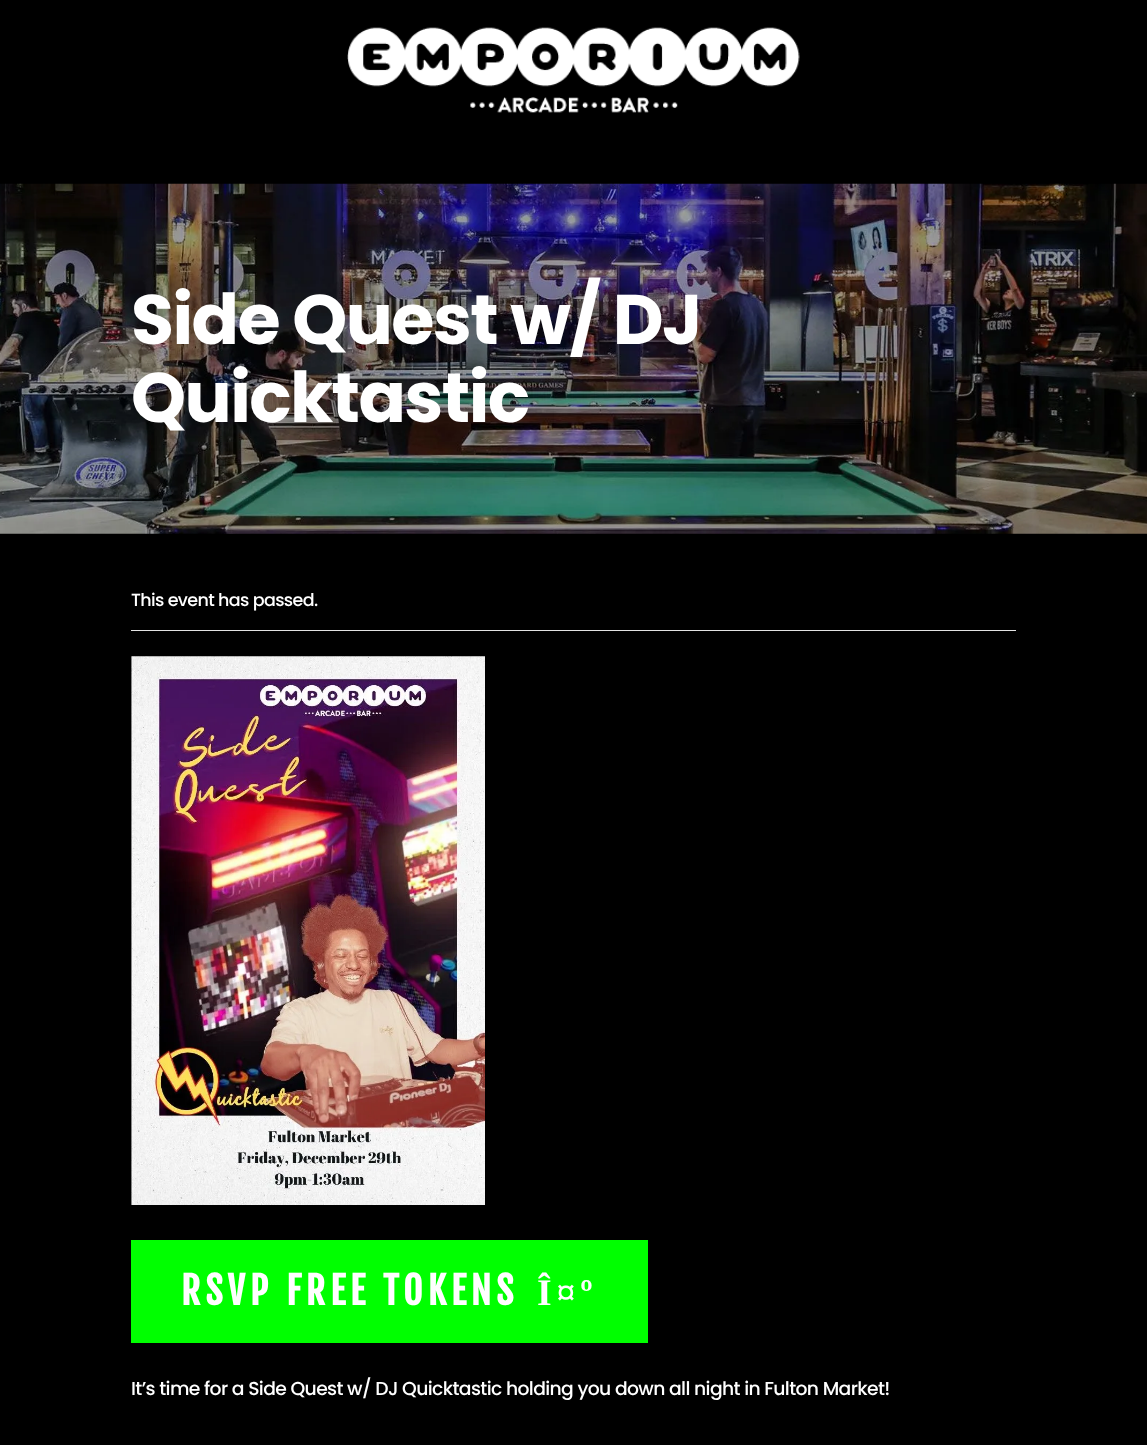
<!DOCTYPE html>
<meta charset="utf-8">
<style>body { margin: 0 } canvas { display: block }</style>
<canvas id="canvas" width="1147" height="1445"></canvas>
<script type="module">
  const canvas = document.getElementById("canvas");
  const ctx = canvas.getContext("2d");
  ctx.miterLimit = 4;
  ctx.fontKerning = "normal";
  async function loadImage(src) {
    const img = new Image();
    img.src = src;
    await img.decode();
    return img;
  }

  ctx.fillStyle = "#000000";
  ctx.fillRect(0, 0, 1147, 1445);
  ctx.drawImage(await loadImage("img1.png"), 347, 27, 453, 86);
  ctx.drawImage(await loadImage("img2.png"), 0, 183, 1147, 351);
  ctx.letterSpacing = "-1.6px";
  ctx.font = "bold 70px Poppins";
  ctx.fillStyle = "#ffffff";
  ctx.fillText("Side Quest w/ DJ", 131, 344);
  ctx.fillText("Quicktastic", 131, 422);
  ctx.fillStyle = "#e4e4e4";
  ctx.fillRect(131, 630, 885, 1);
  ctx.letterSpacing = "-0.62px";
  ctx.font = "500 17.5px Poppins";
  ctx.fillStyle = "#ffffff";
  ctx.fillText("This event has passed.", 131, 606);
  ctx.drawImage(await loadImage("img3.png"), 131, 656, 354, 549);
  ctx.fillStyle = "#00ff00";
  ctx.fillRect(131, 1240, 517, 103);
  ctx.letterSpacing = "5px";
  ctx.font = "bold 37.5px Fjalla One";
  ctx.fillStyle = "#ffffff";
  ctx.fillText("RSVP FREE TOKENS", 181, 1305);
  ctx.font = "bold 37.5px Liberation Serif";
  ctx.fillText("Î¤º", 537, 1305);
  ctx.letterSpacing = "-0.62px";
  ctx.font = "500 18.75px Poppins";
  ctx.fillText("It’s time for a Side Quest w/ DJ Quicktastic holding you down all night in Fulton Market!", 131, 1395);
</script>
